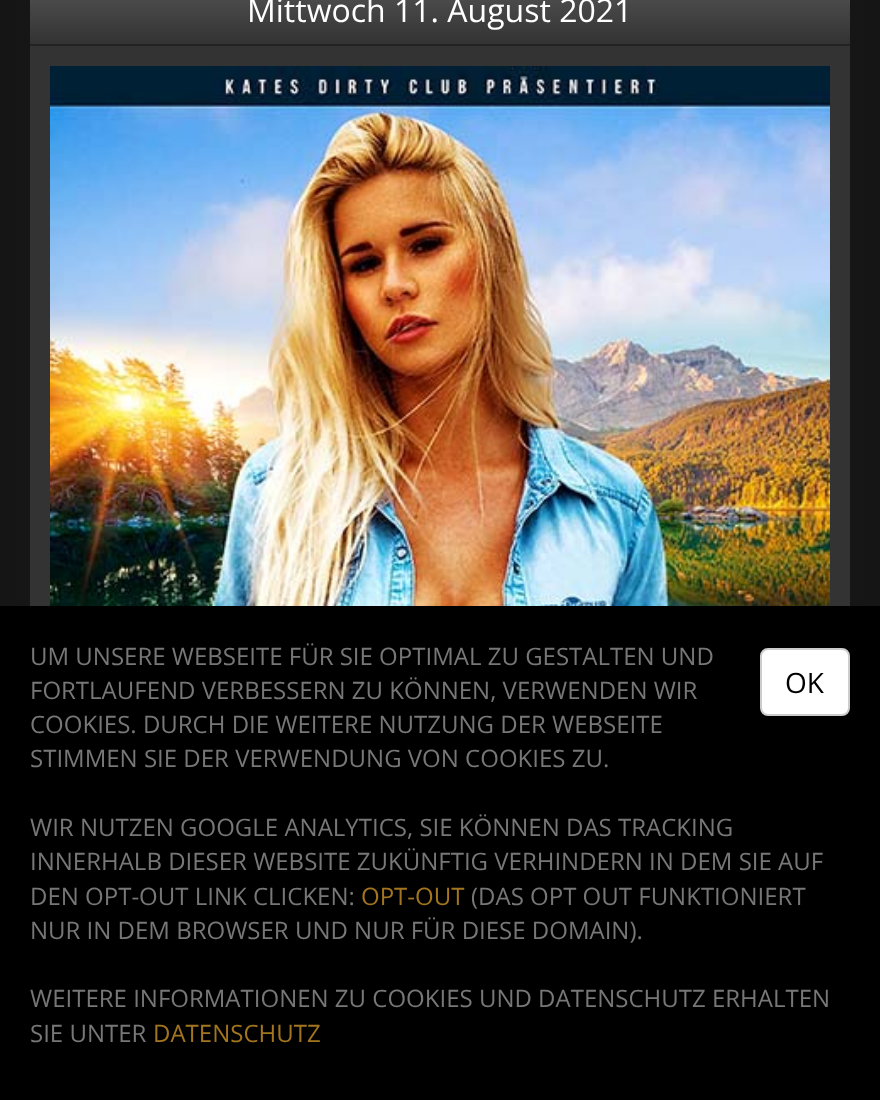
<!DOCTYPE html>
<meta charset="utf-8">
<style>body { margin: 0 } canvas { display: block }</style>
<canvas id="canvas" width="880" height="1100"></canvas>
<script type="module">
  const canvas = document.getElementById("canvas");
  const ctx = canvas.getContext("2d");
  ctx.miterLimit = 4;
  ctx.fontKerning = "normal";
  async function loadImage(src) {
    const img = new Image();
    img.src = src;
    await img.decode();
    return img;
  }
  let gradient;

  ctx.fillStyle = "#ffffff";
  ctx.fillRect(0, 0, 880, 1100);
  gradient = ctx.createLinearGradient(0, 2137, 880, 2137);
  gradient.addColorStop(0, "#151515");
  gradient.addColorStop(0.5, "#222222");
  gradient.addColorStop(1, "#151515");
  ctx.fillStyle = gradient;
  ctx.fillRect(0, 0, 880, 606);
  gradient = ctx.createLinearGradient(440, -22, 440, 44);
  gradient.addColorStop(0, "#555555");
  gradient.addColorStop(1, "#333333");
  ctx.fillStyle = gradient;
  ctx.fillRect(30, 0, 820, 44);
  ctx.font = "32px Open Sans";
  ctx.fillStyle = "#ffffff";
  ctx.fillText("Mittwoch 11. August 2021", 247, 22);
  ctx.fillStyle = "#333333";
  ctx.fillRect(30, 46, 820, 560);
  ctx.fillStyle = "#222222";
  ctx.fillRect(30, 44, 820, 2);
  ctx.drawImage(await loadImage("img1.png"), 50, 66, 780, 540);
  ctx.fillStyle = "#000000";
  ctx.fillRect(0, 606, 880, 494);
  ctx.font = "24px Open Sans";
  ctx.fillStyle = "#777777";
  ctx.fillText("UM UNSERE WEBSEITE FÜR SIE OPTIMAL ZU GESTALTEN UND", 30, 665);
  ctx.fillText("FORTLAUFEND VERBESSERN ZU KÖNNEN, VERWENDEN WIR", 30, 699);
  ctx.fillText("COOKIES. DURCH DIE WEITERE NUTZUNG DER WEBSEITE", 30, 733);
  ctx.fillText("STIMMEN SIE DER VERWENDUNG VON COOKIES ZU.", 30, 767);
  ctx.fillText("WIR NUTZEN GOOGLE ANALYTICS, SIE KÖNNEN DAS TRACKING", 30, 836);
  ctx.fillText("INNERHALB DIESER WEBSITE ZUKÜNFTIG VERHINDERN IN DEM SIE AUF", 30, 870);
  ctx.fillText("DEN OPT-OUT LINK CLICKEN:", 30, 905);
  ctx.fillStyle = "#a2751e";
  ctx.fillText("OPT-OUT", 361, 905);
  ctx.fillStyle = "#777777";
  ctx.fillText("(DAS OPT OUT FUNKTIONIERT", 471, 905);
  ctx.fillText("NUR IN DEM BROWSER UND NUR FÜR DIESE DOMAIN).", 30, 939);
  ctx.fillText("WEITERE INFORMATIONEN ZU COOKIES UND DATENSCHUTZ ERHALTEN", 30, 1007);
  ctx.fillText("SIE UNTER", 30, 1042);
  ctx.fillStyle = "#a2751e";
  ctx.fillText("DATENSCHUTZ", 153, 1042);
  ctx.fillStyle = "#ffffff";
  ctx.beginPath();
  ctx.roundRect(761, 649, 88, 66, 7);
  ctx.fill();
  ctx.strokeStyle = "#cccccc";
  ctx.lineWidth = 2;
  ctx.stroke();
  ctx.font = "28px Open Sans";
  ctx.fillStyle = "#000000";
  ctx.fillText("OK", 785, 693);
</script>
